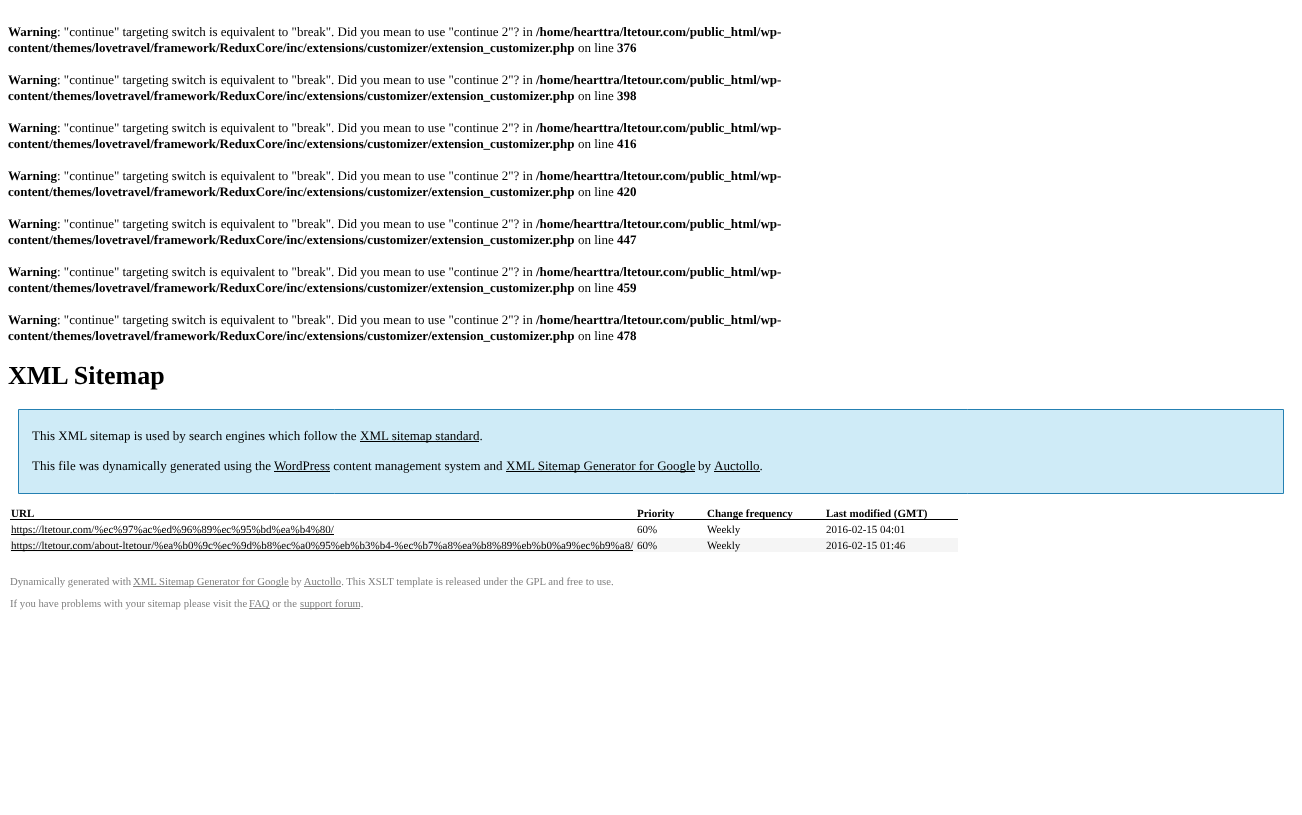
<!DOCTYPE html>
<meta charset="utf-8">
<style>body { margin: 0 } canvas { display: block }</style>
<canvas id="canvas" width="1302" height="815"></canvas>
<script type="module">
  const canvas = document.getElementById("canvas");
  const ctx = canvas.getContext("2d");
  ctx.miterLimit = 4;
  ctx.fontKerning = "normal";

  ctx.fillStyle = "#ffffff";
  ctx.fillRect(0, 0, 1302, 815);
  ctx.font = "bold 13px Liberation Serif";
  ctx.fillStyle = "#000000";
  ctx.fillText("Warning", 8, 36);
  ctx.font = "13px Liberation Serif";
  ctx.fillText(": \"continue\" targeting switch is equivalent to \"break\". Did you mean to use \"continue 2\"? in", 57, 36);
  ctx.font = "bold 13px Liberation Serif";
  ctx.fillText("/home/hearttra/ltetour.com/public_html/wp-", 536, 36);
  ctx.fillText("content/themes/lovetravel/framework/ReduxCore/inc/extensions/customizer/extension_customizer.php", 8, 52);
  ctx.font = "13px Liberation Serif";
  ctx.fillText("on line", 578, 52);
  ctx.font = "bold 13px Liberation Serif";
  ctx.fillText("376", 617, 52);
  ctx.fillText("Warning", 8, 84);
  ctx.font = "13px Liberation Serif";
  ctx.fillText(": \"continue\" targeting switch is equivalent to \"break\". Did you mean to use \"continue 2\"? in", 57, 84);
  ctx.font = "bold 13px Liberation Serif";
  ctx.fillText("/home/hearttra/ltetour.com/public_html/wp-", 536, 84);
  ctx.fillText("content/themes/lovetravel/framework/ReduxCore/inc/extensions/customizer/extension_customizer.php", 8, 100);
  ctx.font = "13px Liberation Serif";
  ctx.fillText("on line", 578, 100);
  ctx.font = "bold 13px Liberation Serif";
  ctx.fillText("398", 617, 100);
  ctx.fillText("Warning", 8, 132);
  ctx.font = "13px Liberation Serif";
  ctx.fillText(": \"continue\" targeting switch is equivalent to \"break\". Did you mean to use \"continue 2\"? in", 57, 132);
  ctx.font = "bold 13px Liberation Serif";
  ctx.fillText("/home/hearttra/ltetour.com/public_html/wp-", 536, 132);
  ctx.fillText("content/themes/lovetravel/framework/ReduxCore/inc/extensions/customizer/extension_customizer.php", 8, 148);
  ctx.font = "13px Liberation Serif";
  ctx.fillText("on line", 578, 148);
  ctx.font = "bold 13px Liberation Serif";
  ctx.fillText("416", 617, 148);
  ctx.fillText("Warning", 8, 180);
  ctx.font = "13px Liberation Serif";
  ctx.fillText(": \"continue\" targeting switch is equivalent to \"break\". Did you mean to use \"continue 2\"? in", 57, 180);
  ctx.font = "bold 13px Liberation Serif";
  ctx.fillText("/home/hearttra/ltetour.com/public_html/wp-", 536, 180);
  ctx.fillText("content/themes/lovetravel/framework/ReduxCore/inc/extensions/customizer/extension_customizer.php", 8, 196);
  ctx.font = "13px Liberation Serif";
  ctx.fillText("on line", 578, 196);
  ctx.font = "bold 13px Liberation Serif";
  ctx.fillText("420", 617, 196);
  ctx.fillText("Warning", 8, 228);
  ctx.font = "13px Liberation Serif";
  ctx.fillText(": \"continue\" targeting switch is equivalent to \"break\". Did you mean to use \"continue 2\"? in", 57, 228);
  ctx.font = "bold 13px Liberation Serif";
  ctx.fillText("/home/hearttra/ltetour.com/public_html/wp-", 536, 228);
  ctx.fillText("content/themes/lovetravel/framework/ReduxCore/inc/extensions/customizer/extension_customizer.php", 8, 244);
  ctx.font = "13px Liberation Serif";
  ctx.fillText("on line", 578, 244);
  ctx.font = "bold 13px Liberation Serif";
  ctx.fillText("447", 617, 244);
  ctx.fillText("Warning", 8, 276);
  ctx.font = "13px Liberation Serif";
  ctx.fillText(": \"continue\" targeting switch is equivalent to \"break\". Did you mean to use \"continue 2\"? in", 57, 276);
  ctx.font = "bold 13px Liberation Serif";
  ctx.fillText("/home/hearttra/ltetour.com/public_html/wp-", 536, 276);
  ctx.fillText("content/themes/lovetravel/framework/ReduxCore/inc/extensions/customizer/extension_customizer.php", 8, 292);
  ctx.font = "13px Liberation Serif";
  ctx.fillText("on line", 578, 292);
  ctx.font = "bold 13px Liberation Serif";
  ctx.fillText("459", 617, 292);
  ctx.fillText("Warning", 8, 324);
  ctx.font = "13px Liberation Serif";
  ctx.fillText(": \"continue\" targeting switch is equivalent to \"break\". Did you mean to use \"continue 2\"? in", 57, 324);
  ctx.font = "bold 13px Liberation Serif";
  ctx.fillText("/home/hearttra/ltetour.com/public_html/wp-", 536, 324);
  ctx.fillText("content/themes/lovetravel/framework/ReduxCore/inc/extensions/customizer/extension_customizer.php", 8, 340);
  ctx.font = "13px Liberation Serif";
  ctx.fillText("on line", 578, 340);
  ctx.font = "bold 13px Liberation Serif";
  ctx.fillText("478", 617, 340);
  ctx.font = "bold 26px Liberation Serif";
  ctx.fillText("XML Sitemap", 8, 384);
  ctx.fillStyle = "#cfebf7";
  ctx.beginPath();
  ctx.rect(18.5, 409.5, 1265, 84);
  ctx.fill();
  ctx.strokeStyle = "#2580b2";
  ctx.stroke();
  ctx.font = "13px Liberation Serif";
  ctx.fillStyle = "#000000";
  ctx.fillText("This XML sitemap is used by search engines which follow the", 32, 440);
  ctx.fillRect(360, 441, 119, 1);
  ctx.fillText("XML sitemap standard.", 360, 440);
  ctx.fillText("This file was dynamically generated using the WordPress content management system and", 32, 470);
  ctx.fillRect(506, 471, 189, 1);
  ctx.fillText("XML Sitemap Generator for Google", 506, 470);
  ctx.fillText("by", 698, 470);
  ctx.fillText("Auctollo.", 714, 470);
  ctx.fillRect(714, 471, 46, 1);
  ctx.fillRect(274, 471, 56, 1);
  ctx.fillRect(10, 519, 948, 1);
  ctx.font = "bold 11px Liberation Serif";
  ctx.fillText("URL", 11, 517);
  ctx.fillText("Priority", 637, 517);
  ctx.fillText("Change frequency", 707, 517);
  ctx.fillText("Last modified (GMT)", 826, 517);
  ctx.fillRect(11, 534, 323, 1);
  ctx.font = "11px Liberation Serif";
  ctx.fillText("https://ltetour.com/%ec%97%ac%ed%96%89%ec%95%bd%ea%b4%80/", 11, 533);
  ctx.fillText("60%", 637, 533);
  ctx.fillText("Weekly", 707, 533);
  ctx.fillText("2016-02-15 04:01", 826, 533);
  ctx.fillStyle = "#f5f5f5";
  ctx.fillRect(10, 538, 948, 14);
  ctx.fillStyle = "#000000";
  ctx.fillRect(11, 550, 622, 1);
  ctx.fillText("https://ltetour.com/about-ltetour/%ea%b0%9c%ec%9d%b8%ec%a0%95%eb%b3%b4-%ec%b7%a8%ea%b8%89%eb%b0%a9%ec%b9%a8/", 11, 549);
  ctx.fillText("60%", 637, 549);
  ctx.fillText("Weekly", 707, 549);
  ctx.fillText("2016-02-15 01:46", 826, 549);
  ctx.font = "10.7px Liberation Serif";
  ctx.fillStyle = "#808080";
  ctx.fillText("Dynamically generated with", 10, 585);
  ctx.fillRect(133, 586, 156, 1);
  ctx.fillText("XML Sitemap Generator for Google", 133, 585);
  ctx.fillText("by Auctollo. This XSLT template is released under the GPL and free to use.", 291, 585);
  ctx.fillRect(304, 586, 37, 1);
  ctx.fillText("If you have problems with your sitemap please visit the", 10, 607);
  ctx.fillRect(249, 608, 21, 1);
  ctx.fillText("FAQ or the", 249, 607);
  ctx.fillRect(300, 608, 60, 1);
  ctx.fillText("support forum.", 300, 607);
</script>
